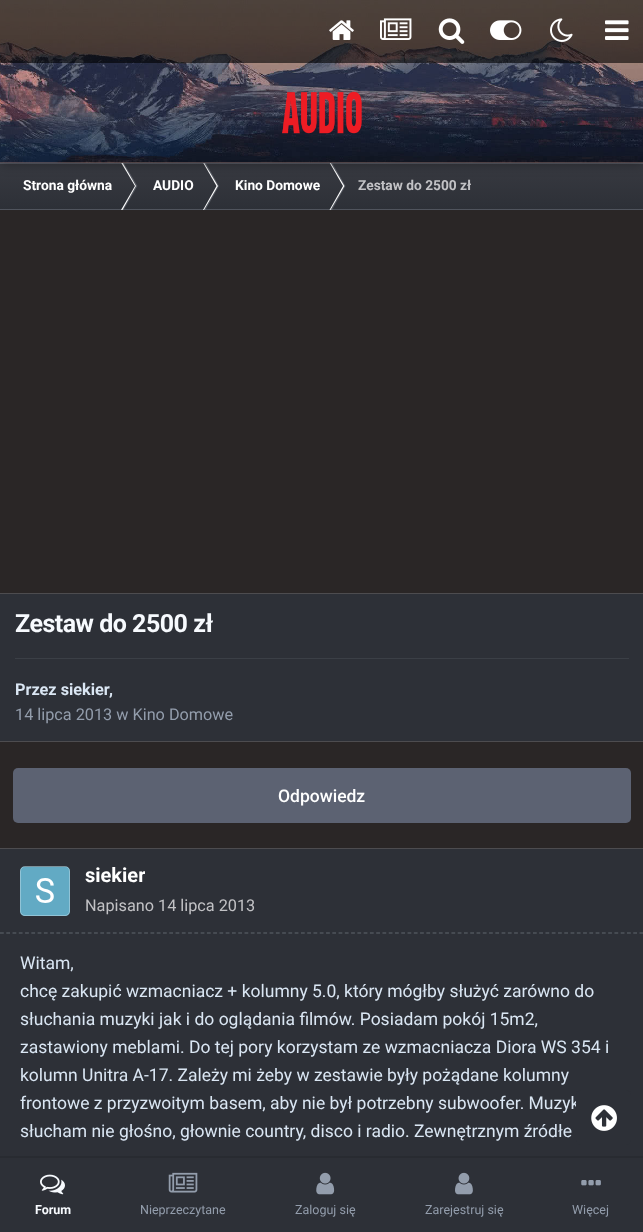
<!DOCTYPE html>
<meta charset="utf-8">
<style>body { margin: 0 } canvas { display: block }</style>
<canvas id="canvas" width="643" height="1232"></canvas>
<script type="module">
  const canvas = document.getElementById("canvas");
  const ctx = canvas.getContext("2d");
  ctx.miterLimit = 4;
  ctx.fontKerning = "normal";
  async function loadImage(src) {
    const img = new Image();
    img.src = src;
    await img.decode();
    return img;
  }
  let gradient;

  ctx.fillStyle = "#2a2626";
  ctx.fillRect(0, 0, 643, 1232);
  gradient = ctx.createLinearGradient(322, 162, 322, 210);
  gradient.addColorStop(0, "#383a41");
  gradient.addColorStop(1, "#2d3037");
  ctx.fillStyle = gradient;
  ctx.fillRect(0, 163, 643, 47);
  ctx.fillStyle = "#ffffff";
  ctx.beginPath();
  ctx.moveTo(121, 162.5);
  ctx.lineTo(122.5, 162.5);
  ctx.lineTo(136, 186);
  ctx.lineTo(135, 186);
  ctx.closePath();
  ctx.fill();
  ctx.fillStyle = "rgba(218, 230, 243, 0.2)";
  ctx.beginPath();
  ctx.moveTo(122.5, 162.5);
  ctx.lineTo(123.5, 162.5);
  ctx.lineTo(137.5, 186);
  ctx.lineTo(136, 186);
  ctx.closePath();
  ctx.fill();
  ctx.fillStyle = "#ffffff";
  ctx.beginPath();
  ctx.moveTo(203, 162.5);
  ctx.lineTo(204, 162.5);
  ctx.lineTo(218, 186);
  ctx.lineTo(216.5, 186);
  ctx.closePath();
  ctx.fill();
  ctx.fillStyle = "rgba(218, 230, 243, 0.2)";
  ctx.beginPath();
  ctx.moveTo(204, 162.5);
  ctx.lineTo(205.5, 162.5);
  ctx.lineTo(219, 186);
  ctx.lineTo(218, 186);
  ctx.closePath();
  ctx.fill();
  ctx.fillStyle = "#ffffff";
  ctx.beginPath();
  ctx.moveTo(329.5, 162.5);
  ctx.lineTo(330.5, 162.5);
  ctx.lineTo(344.5, 186);
  ctx.lineTo(343, 186);
  ctx.closePath();
  ctx.fill();
  ctx.fillStyle = "rgba(218, 230, 243, 0.2)";
  ctx.beginPath();
  ctx.moveTo(330.5, 162.5);
  ctx.lineTo(332, 162.5);
  ctx.lineTo(345.5, 186);
  ctx.lineTo(344.5, 186);
  ctx.closePath();
  ctx.fill();
  ctx.fillRect(0, 163, 643, 1);
  ctx.fillStyle = "rgba(0, 0, 0, 0.35)";
  ctx.filter = "blur(6px)";
  ctx.beginPath();
  ctx.rect(0, 1, 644, 163);
  ctx.fill();
  ctx.filter = "none";
  ctx.fillStyle = "#8b6e6a";
  ctx.fillRect(0, 162, 643, 1);
  ctx.drawImage(await loadImage("img1.png"), 0, 0, 643, 163);
  ctx.fillStyle = "rgba(0, 0, 0, 0.6)";
  ctx.fillRect(0, 0, 643, 63);
  ctx.drawImage(await loadImage("img2.png"), 329, 20, 25, 20);
  ctx.drawImage(await loadImage("img3.png"), 380, 18, 32, 22);
  ctx.drawImage(await loadImage("img4.png"), 438, 18, 27, 26);
  ctx.drawImage(await loadImage("img5.png"), 490, 20, 32, 20);
  ctx.drawImage(await loadImage("img6.png"), 550, 18, 23, 24);
  ctx.drawImage(await loadImage("img7.png"), 605, 20, 24, 20);
  ctx.drawImage(await loadImage("img8.png"), 282, 91, 80, 43);
  ctx.fillStyle = "#ffffff";
  ctx.beginPath();
  ctx.moveTo(121, 210);
  ctx.lineTo(122.5, 210);
  ctx.lineTo(136, 186);
  ctx.lineTo(135, 186);
  ctx.closePath();
  ctx.fill();
  ctx.fillStyle = "rgba(218, 230, 243, 0.2)";
  ctx.beginPath();
  ctx.moveTo(122.5, 210);
  ctx.lineTo(123.5, 210);
  ctx.lineTo(137.5, 186);
  ctx.lineTo(136, 186);
  ctx.closePath();
  ctx.fill();
  ctx.fillStyle = "#ffffff";
  ctx.beginPath();
  ctx.moveTo(203, 210);
  ctx.lineTo(204, 210);
  ctx.lineTo(218, 186);
  ctx.lineTo(216.5, 186);
  ctx.closePath();
  ctx.fill();
  ctx.fillStyle = "rgba(218, 230, 243, 0.2)";
  ctx.beginPath();
  ctx.moveTo(204, 210);
  ctx.lineTo(205.5, 210);
  ctx.lineTo(219, 186);
  ctx.lineTo(218, 186);
  ctx.closePath();
  ctx.fill();
  ctx.fillStyle = "#ffffff";
  ctx.beginPath();
  ctx.moveTo(329.5, 210);
  ctx.lineTo(330.5, 210);
  ctx.lineTo(344.5, 186);
  ctx.lineTo(343, 186);
  ctx.closePath();
  ctx.fill();
  ctx.fillStyle = "rgba(218, 230, 243, 0.2)";
  ctx.beginPath();
  ctx.moveTo(330.5, 210);
  ctx.lineTo(332, 210);
  ctx.lineTo(345.5, 186);
  ctx.lineTo(344.5, 186);
  ctx.closePath();
  ctx.fill();
  ctx.fillRect(0, 209, 643, 1);
  ctx.font = "bold 13.75px Roboto";
  ctx.fillStyle = "#ffffff";
  ctx.fillText("Strona główna", 23, 190);
  ctx.fillText("AUDIO", 153, 190);
  ctx.fillText("Kino Domowe", 235, 190);
  ctx.fillStyle = "#c2c2c5";
  ctx.fillText("Zestaw do 2500 zł", 358, 190);
  ctx.fillStyle = "#2d3037";
  ctx.fillRect(0, 594, 643, 147);
  ctx.fillStyle = "#4d4c4f";
  ctx.fillRect(0, 593, 643, 1);
  ctx.fillRect(0, 741, 643, 1);
  ctx.letterSpacing = "-0.5px";
  ctx.font = "bold 25px Roboto";
  ctx.fillStyle = "#f7fafe";
  ctx.fillText("Zestaw do 2500 zł", 15, 632);
  ctx.fillStyle = "#3b3f46";
  ctx.fillRect(15, 658, 614, 1);
  ctx.letterSpacing = "0px";
  ctx.font = "bold 16.25px Roboto";
  ctx.fillStyle = "#dae6f3";
  ctx.fillText("Przez siekier", 15, 695);
  ctx.fillText(",", 109, 695);
  ctx.font = "16.25px Roboto";
  ctx.fillStyle = "#939dac";
  ctx.fillText("14 lipca 2013 w Kino Domowe", 15, 720);
  ctx.fillStyle = "#5c6272";
  ctx.beginPath();
  ctx.roundRect(13, 768, 618, 55, 5);
  ctx.fill();
  ctx.font = "500 17.5px Roboto";
  ctx.fillStyle = "#ffffff";
  ctx.fillText("Odpowiedz", 278, 802);
  ctx.fillStyle = "#2d3037";
  ctx.fillRect(0, 849, 643, 383);
  ctx.fillStyle = "#4d4c4f";
  ctx.fillRect(0, 848, 643, 1);
  ctx.beginPath();
  ctx.moveTo(0, 933);
  ctx.lineTo(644, 933);
  ctx.strokeStyle = "#61676f";
  ctx.lineWidth = 1.2;
  ctx.setLineDash([3.75, 2.52]);
  ctx.stroke();
  ctx.drawImage(await loadImage("img9.png"), 20, 866, 50, 50);
  ctx.beginPath();
  ctx.roundRect(20.5, 866.5, 49, 49, 4.5);
  ctx.strokeStyle = "rgba(255, 255, 255, 0.3)";
  ctx.lineWidth = 1;
  ctx.setLineDash([]);
  ctx.stroke();
  ctx.save();
  ctx.beginPath();
  ctx.rect(85, 864, 60, 22);
  ctx.clip();
  ctx.font = "bold 20px Roboto";
  ctx.fillStyle = "#ffffff";
  ctx.fillText("siekier", 85, 882);
  ctx.restore();
  ctx.font = "16.25px Roboto";
  ctx.fillStyle = "#c2c2c5";
  ctx.fillText("Napisano 14 lipca 2013", 85, 911);
  ctx.font = "17.5px Roboto";
  ctx.fillStyle = "#dae6f3";
  ctx.fillText("Witam,", 20, 969);
  ctx.fillText("chcę zakupić wzmacniacz + kolumny 5.0, który mógłby służyć zarówno do", 20, 997);
  ctx.fillText("słuchania muzyki jak i do oglądania filmów. Posiadam pokój 15m2,", 20, 1025);
  ctx.fillText("zastawiony meblami. Do tej pory korzystam ze wzmacniacza Diora WS 354 i", 20, 1053);
  ctx.fillText("kolumn Unitra A-17. Zależy mi żeby w zestawie były pożądane kolumny", 20, 1081);
  ctx.fillText("frontowe z przyzwoitym basem, aby nie był potrzebny subwoofer. Muzyk", 20, 1109);
  ctx.fillText("słucham nie głośno, głownie country, disco i radio. Zewnętrznym źródłe", 20, 1137);
  ctx.fillStyle = "#2d3037";
  ctx.beginPath();
  ctx.roundRect(576, 1090, 55, 55, 5);
  ctx.fill();
  ctx.drawImage(await loadImage("img10.png"), 591, 1105, 26, 26);
  ctx.fillStyle = "rgba(0, 0, 0, 0.1)";
  ctx.beginPath();
  ctx.moveTo(0, 1156);
  ctx.lineTo(0, 1158);
  ctx.lineTo(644, 1158);
  ctx.lineTo(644, 1231);
  ctx.lineTo(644, 1156);
  ctx.closePath();
  ctx.fill();
  ctx.drawImage(await loadImage("img11.png"), 40, 1174, 25, 21);
  ctx.font = "bold 12.5px Roboto";
  ctx.fillStyle = "#f7fafe";
  ctx.fillText("Forum", 35, 1214);
  ctx.drawImage(await loadImage("img12.png"), 168, 1172, 30, 21);
  ctx.font = "12.5px Roboto";
  ctx.fillStyle = "#939dac";
  ctx.fillText("Nieprzeczytane", 140, 1214);
  ctx.drawImage(await loadImage("img13.png"), 316, 1172, 19, 23);
  ctx.fillText("Zaloguj się", 295, 1214);
  ctx.drawImage(await loadImage("img14.png"), 455, 1172, 18, 23);
  ctx.fillText("Zarejestruj się", 425, 1214);
  ctx.drawImage(await loadImage("img15.png"), 581, 1180, 20, 6);
  ctx.fillText("Więcej", 572, 1214);
</script>
